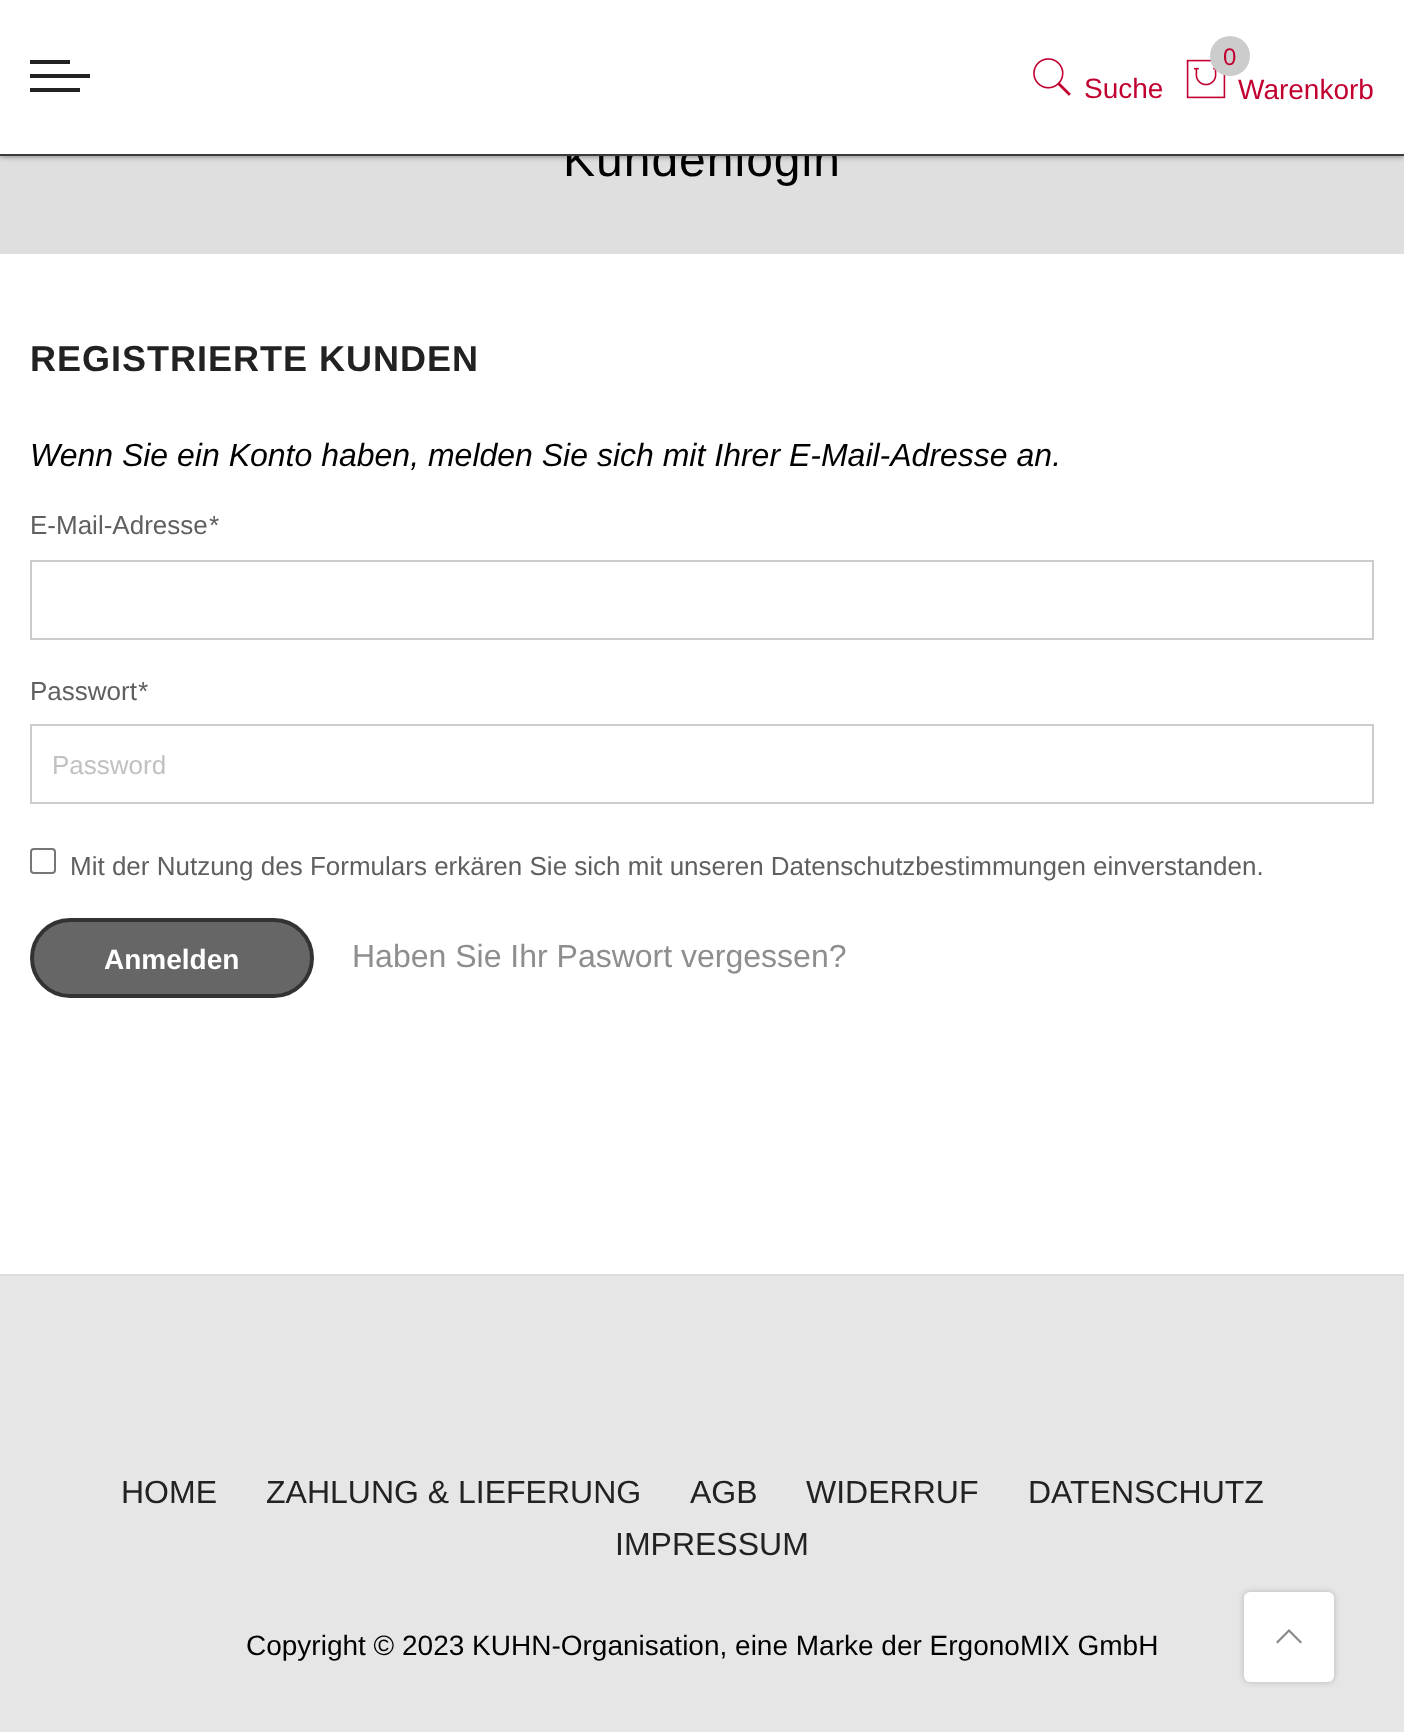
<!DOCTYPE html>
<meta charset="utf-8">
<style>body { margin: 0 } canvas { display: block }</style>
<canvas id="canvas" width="1404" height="1732"></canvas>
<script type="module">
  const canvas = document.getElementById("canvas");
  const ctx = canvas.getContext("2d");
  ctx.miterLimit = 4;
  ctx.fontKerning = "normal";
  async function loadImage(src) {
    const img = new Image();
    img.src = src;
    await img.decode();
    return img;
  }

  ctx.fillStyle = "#ffffff";
  ctx.fillRect(0, 0, 1404, 1732);
  ctx.fillStyle = "#dfdfdf";
  ctx.fillRect(0, 156, 1404, 98);
  ctx.fillStyle = "rgba(0, 0, 0, 0.5)";
  ctx.filter = "blur(3px)";
  ctx.beginPath();
  ctx.rect(0, 0, 1404, 156);
  ctx.fill();
  ctx.filter = "none";
  ctx.letterSpacing = "1px";
  ctx.font = "48px Liberation Sans";
  ctx.fillStyle = "#000000";
  ctx.fillText("Kundenlogin", 563, 176);
  ctx.fillStyle = "#ffffff";
  ctx.fillRect(0, 0, 1404, 154);
  ctx.fillStyle = "#3b3b3b";
  ctx.fillRect(0, 154, 1404, 2);
  ctx.fillStyle = "#222222";
  ctx.fillRect(30, 60, 40, 4);
  ctx.fillRect(30, 74, 60, 4);
  ctx.fillRect(30, 88, 50, 4);
  ctx.drawImage(await loadImage("img1.png"), 1033, 58, 38, 38);
  ctx.letterSpacing = "0px";
  ctx.font = "28px Liberation Sans";
  ctx.fillStyle = "#c1002f";
  ctx.fillText("Suche", 1084, 98);
  ctx.drawImage(await loadImage("img2.png"), 1186, 59, 40, 40);
  ctx.fillStyle = "#cccccc";
  ctx.beginPath();
  ctx.arc(1230, 56, 20, 0, Math.PI * 2);
  ctx.fill();
  ctx.font = "24px Liberation Sans";
  ctx.fillStyle = "#c1002f";
  ctx.fillText("0", 1223, 65);
  ctx.font = "28px Liberation Sans";
  ctx.fillText("Warenkorb", 1238, 99);
  ctx.letterSpacing = "1px";
  ctx.font = "bold 36px Liberation Sans";
  ctx.fillStyle = "#222222";
  ctx.fillText("REGISTRIERTE KUNDEN", 30, 371);
  ctx.letterSpacing = "0px";
  ctx.font = "italic 32px Liberation Sans";
  ctx.fillStyle = "#000000";
  ctx.fillText("Wenn Sie ein Konto haben, melden Sie sich mit Ihrer E-Mail-Adresse an.", 30, 466);
  ctx.font = "26px Liberation Sans";
  ctx.fillStyle = "#5f5f5f";
  ctx.fillText("E-Mail-Adresse", 30, 534);
  ctx.font = "italic 26px Liberation Sans";
  ctx.fillText("*", 208, 534);
  ctx.strokeStyle = "#cccccc";
  ctx.lineWidth = 2;
  ctx.strokeRect(31, 561, 1342, 78);
  ctx.font = "26px Liberation Sans";
  ctx.fillText("Passwort", 30, 700);
  ctx.font = "italic 26px Liberation Sans";
  ctx.fillText("*", 137, 700);
  ctx.strokeRect(31, 725, 1342, 78);
  ctx.font = "26px Liberation Sans";
  ctx.fillStyle = "#c1c1c1";
  ctx.fillText("Password", 52, 774);
  ctx.beginPath();
  ctx.roundRect(31, 849, 24, 24, 3);
  ctx.strokeStyle = "#767676";
  ctx.stroke();
  ctx.fillStyle = "#5f5f5f";
  ctx.fillText("Mit der Nutzung des Formulars erkären Sie sich mit unseren Datenschutzbestimmungen einverstanden.", 70, 875);
  ctx.fillStyle = "#666666";
  ctx.beginPath();
  ctx.roundRect(32, 920, 280, 76, 38);
  ctx.fill();
  ctx.strokeStyle = "#333333";
  ctx.lineWidth = 4;
  ctx.stroke();
  ctx.font = "bold 28px Liberation Sans";
  ctx.fillStyle = "#ffffff";
  ctx.fillText("Anmelden", 104, 969);
  ctx.font = "32px Liberation Sans";
  ctx.fillStyle = "#8e8e8e";
  ctx.fillText("Haben Sie Ihr Paswort vergessen?", 352, 967);
  ctx.fillStyle = "#e6e6e6";
  ctx.fillRect(0, 1276, 1404, 456);
  ctx.fillStyle = "#dddddd";
  ctx.fillRect(0, 1274, 1404, 2);
  ctx.fillStyle = "#222222";
  ctx.fillText("HOME", 121, 1503);
  ctx.fillText("ZAHLUNG & LIEFERUNG", 266, 1503);
  ctx.fillText("AGB", 690, 1503);
  ctx.fillText("WIDERRUF", 806, 1503);
  ctx.fillText("DATENSCHUTZ", 1028, 1503);
  ctx.fillText("IMPRESSUM", 615, 1555);
  ctx.font = "28px Liberation Sans";
  ctx.fillStyle = "#000000";
  ctx.fillText("Copyright © 2023 KUHN-Organisation, eine Marke der ErgonoMIX GmbH", 246, 1655);
  ctx.fillStyle = "rgba(0, 0, 0, 0.2)";
  ctx.filter = "blur(3px)";
  ctx.beginPath();
  ctx.roundRect(1244, 1592, 90, 90, 6);
  ctx.fill();
  ctx.filter = "none";
  ctx.fillStyle = "#ffffff";
  ctx.beginPath();
  ctx.roundRect(1244, 1592, 90, 90, 6);
  ctx.fill();
  ctx.fillStyle = "#878787";
  ctx.beginPath();
  ctx.moveTo(1290.5, 1630.5);
  ctx.lineTo(1289, 1629);
  ctx.lineTo(1276, 1642);
  ctx.lineTo(1277.5, 1643.5);
  ctx.lineTo(1289, 1632);
  ctx.lineTo(1300.5, 1643.5);
  ctx.lineTo(1302, 1642);
  ctx.closePath();
  ctx.fill();
</script>
